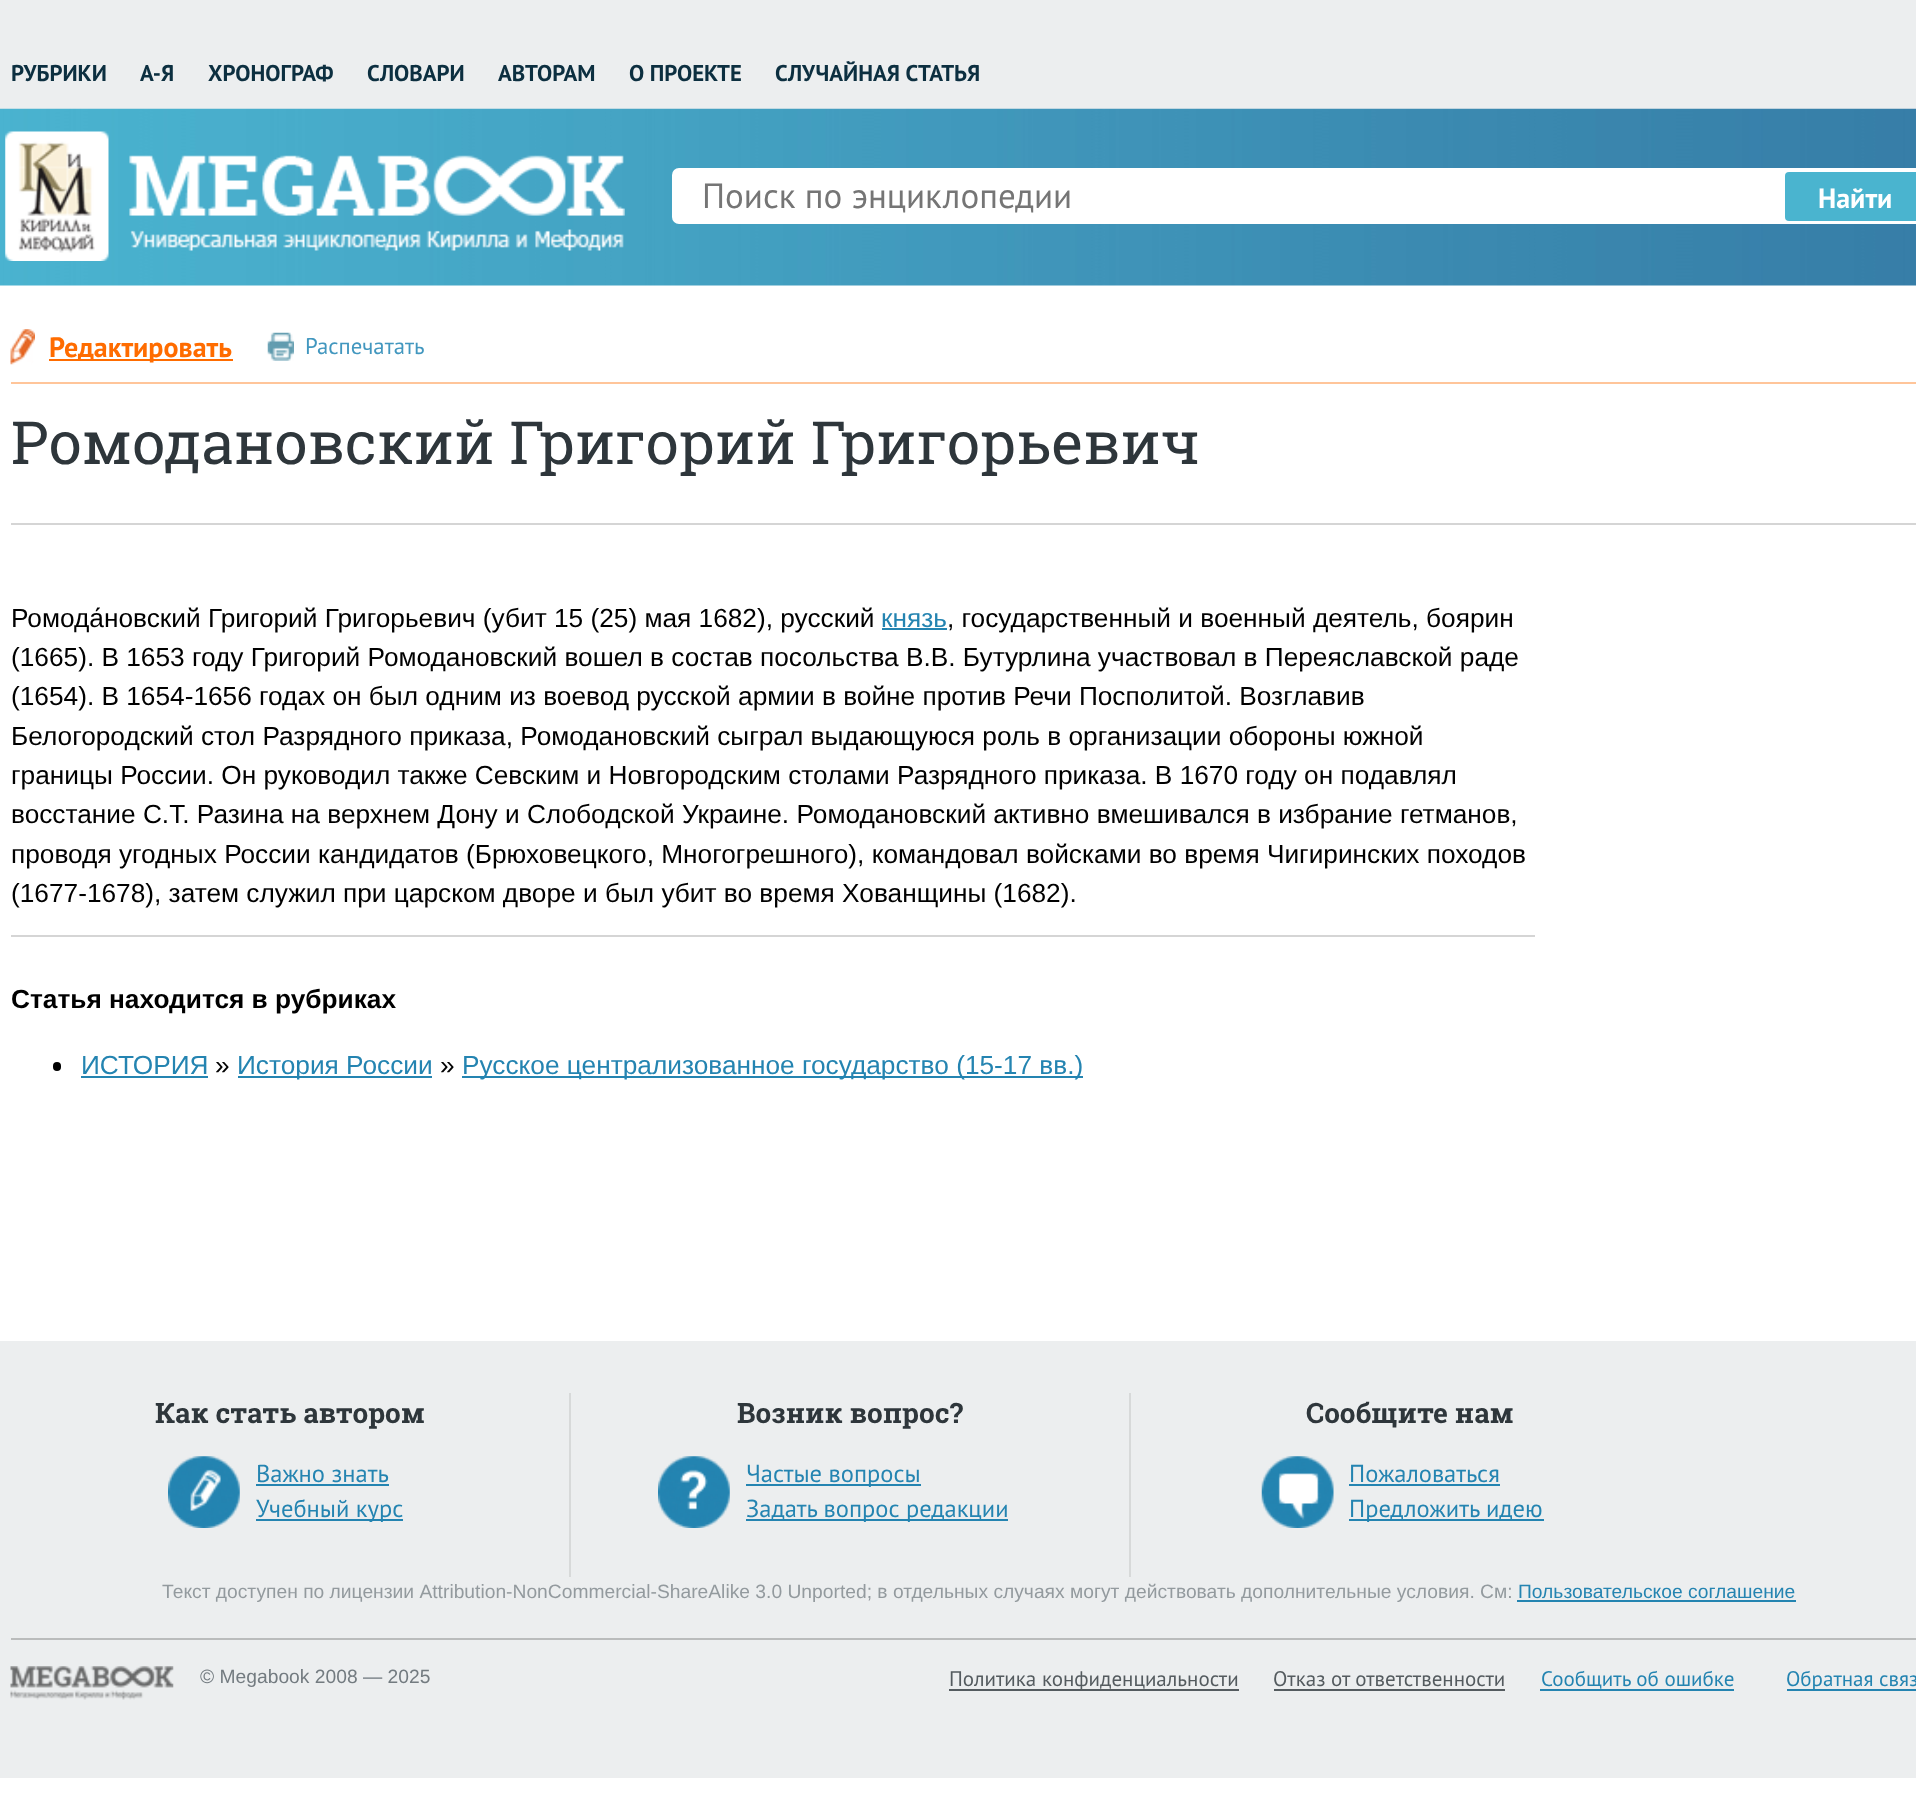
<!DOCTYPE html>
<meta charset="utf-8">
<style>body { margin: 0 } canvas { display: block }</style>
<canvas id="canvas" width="1916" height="1804"></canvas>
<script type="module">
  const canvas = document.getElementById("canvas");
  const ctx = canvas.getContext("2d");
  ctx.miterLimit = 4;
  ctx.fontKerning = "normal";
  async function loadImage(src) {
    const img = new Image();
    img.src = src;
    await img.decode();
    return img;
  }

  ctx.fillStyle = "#ffffff";
  ctx.fillRect(0, 0, 1916, 1804);
  ctx.fillStyle = "#eceeef";
  ctx.fillRect(0, 0, 1916, 109);
  ctx.font = "bold 22.75px PT Sans";
  ctx.fillStyle = "#0c2f40";
  ctx.fillText("РУБРИКИ", 11, 81);
  ctx.fillText("А-Я", 140, 81);
  ctx.fillText("ХРОНОГРАФ", 208, 81);
  ctx.fillText("СЛОВАРИ", 367, 81);
  ctx.fillText("АВТОРАМ", 498, 81);
  ctx.fillText("О ПРОЕКТЕ", 629, 81);
  ctx.fillText("СЛУЧАЙНАЯ СТАТЬЯ", 775, 81);
  ctx.drawImage(await loadImage("img1.png"), 0, 108, 1916, 178);
  ctx.drawImage(await loadImage("img2.png"), 5, 131, 620, 130);
  ctx.fillStyle = "#ffffff";
  ctx.beginPath();
  ctx.roundRect(672, 168, 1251, 56, 7);
  ctx.fill();
  ctx.font = "35px PT Sans";
  ctx.fillStyle = "#757575";
  ctx.fillText("Поиск по энциклопедии", 702, 208);
  ctx.fillStyle = "#4ab4cf";
  ctx.beginPath();
  ctx.roundRect(1785, 172, 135, 49, 4);
  ctx.fill();
  ctx.font = "bold 28px PT Sans";
  ctx.fillStyle = "#ffffff";
  ctx.fillText("Найти", 1818, 208);
  ctx.drawImage(await loadImage("img3.png"), 10, 329, 25, 36);
  ctx.fillStyle = "#ff6c00";
  ctx.fillRect(49, 359, 184, 2);
  ctx.fillText("Редактировать", 49, 357);
  ctx.drawImage(await loadImage("img4.png"), 267, 332, 27, 29);
  ctx.font = "22.75px PT Sans";
  ctx.fillStyle = "#4297bf";
  ctx.fillText("Распечатать", 305, 354);
  ctx.fillStyle = "#ffc59a";
  ctx.fillRect(11, 382, 1905, 2);
  ctx.font = "59.5px Roboto Slab";
  ctx.fillStyle = "#2e363b";
  ctx.fillText("Ромодановский Григорий Григорьевич", 11, 464);
  ctx.fillStyle = "#d5d5d5";
  ctx.fillRect(11, 523, 1905, 2);
  ctx.font = "26.25px Liberation Sans";
  ctx.fillStyle = "#000000";
  ctx.fillText("Ромода́новский Григорий Григорьевич (убит 15 (25) мая 1682), русский", 11, 627);
  ctx.fillStyle = "#2484b1";
  ctx.fillText("князь", 881, 627);
  ctx.fillRect(882, 628, 65, 2);
  ctx.fillStyle = "#000000";
  ctx.fillText(", государственный и военный деятель, боярин", 947, 627);
  ctx.fillText("(1665). В 1653 году Григорий Ромодановский вошел в состав посольства В.В. Бутурлина участвовал в Переяславской раде", 11, 666);
  ctx.fillText("(1654). В 1654-1656 годах он был одним из воевод русской армии в войне против Речи Посполитой. Возглавив", 11, 705);
  ctx.fillText("Белогородский стол Разрядного приказа, Ромодановский сыграл выдающуюся роль в организации обороны южной", 11, 745);
  ctx.fillText("границы России. Он руководил также Севским и Новгородским столами Разрядного приказа. В 1670 году он подавлял", 11, 784);
  ctx.fillText("восстание С.Т. Разина на верхнем Дону и Слободской Украине. Ромодановский активно вмешивался в избрание гетманов,", 11, 823);
  ctx.fillText("проводя угодных России кандидатов (Брюховецкого, Многогрешного), командовал войсками во время Чигиринских походов", 11, 863);
  ctx.fillText("(1677-1678), затем служил при царском дворе и был убит во время Хованщины (1682).", 11, 902);
  ctx.fillStyle = "#d5d5d5";
  ctx.fillRect(11, 935, 1524, 2);
  ctx.font = "bold 26.25px Liberation Sans";
  ctx.fillStyle = "#000000";
  ctx.fillText("Статья находится в рубриках", 11, 1008);
  ctx.beginPath();
  ctx.roundRect(53, 1062, 8, 9, 4);
  ctx.fill();
  ctx.font = "26.25px Liberation Sans";
  ctx.fillStyle = "#2484b1";
  ctx.fillText("ИСТОРИЯ", 81, 1074);
  ctx.fillRect(81, 1076, 127, 2);
  ctx.fillStyle = "#000000";
  ctx.fillText("»", 215, 1074);
  ctx.fillStyle = "#2484b1";
  ctx.fillRect(238, 1076, 194, 2);
  ctx.fillText("История России", 237, 1074);
  ctx.fillStyle = "#000000";
  ctx.fillText("»", 440, 1074);
  ctx.fillStyle = "#2484b1";
  ctx.fillRect(462, 1076, 621, 2);
  ctx.fillText("Русское централизованное государство (15-17 вв.)", 462, 1074);
  ctx.fillStyle = "#eceeef";
  ctx.fillRect(0, 1341, 1916, 437);
  ctx.font = "bold 28px Roboto Slab";
  ctx.fillStyle = "#2e363b";
  ctx.fillText("Как стать автором", 155, 1423);
  ctx.drawImage(await loadImage("img5.png"), 168, 1456, 72, 72);
  ctx.font = "24.5px PT Sans";
  ctx.fillStyle = "#2484b1";
  ctx.fillText("Важно знать", 256, 1482);
  ctx.fillRect(256, 1484, 133, 2);
  ctx.fillRect(256, 1519, 147, 2);
  ctx.fillText("Учебный курс", 256, 1517);
  ctx.fillStyle = "#d7d9d9";
  ctx.fillRect(1129, 1393, 2, 184);
  ctx.fillRect(569, 1393, 2, 184);
  ctx.font = "bold 28px Roboto Slab";
  ctx.fillStyle = "#2e363b";
  ctx.fillText("Возник вопрос?", 737, 1423);
  ctx.drawImage(await loadImage("img6.png"), 658, 1456, 72, 72);
  ctx.fillStyle = "#2484b1";
  ctx.fillRect(746, 1484, 175, 2);
  ctx.font = "24.5px PT Sans";
  ctx.fillText("Частые вопросы", 746, 1482);
  ctx.fillRect(746, 1519, 262, 2);
  ctx.fillText("Задать вопрос редакции", 746, 1517);
  ctx.font = "bold 28px Roboto Slab";
  ctx.fillStyle = "#2e363b";
  ctx.fillText("Сообщите нам", 1306, 1423);
  ctx.drawImage(await loadImage("img7.png"), 1261, 1456, 73, 72);
  ctx.font = "24.5px PT Sans";
  ctx.fillStyle = "#2484b1";
  ctx.fillText("Пожаловаться", 1349, 1482);
  ctx.fillRect(1349, 1484, 151, 2);
  ctx.fillRect(1349, 1519, 195, 2);
  ctx.fillText("Предложить идею", 1349, 1517);
  ctx.fillStyle = "#babcbc";
  ctx.fillRect(11, 1638, 1905, 2);
  ctx.font = "19.25px Liberation Sans";
  ctx.fillStyle = "#939a9e";
  ctx.fillText("Текст доступен по лицензии Attribution-NonCommercial-ShareAlike 3.0 Unported; в отдельных случаях могут действовать дополнительные условия. См:", 162, 1598);
  ctx.fillStyle = "#2484b1";
  ctx.fillText("Пользовательское соглашение", 1518, 1598);
  ctx.fillRect(1517, 1600, 279, 2);
  ctx.drawImage(await loadImage("img8.png"), 10, 1666, 164, 34);
  ctx.fillStyle = "#737b80";
  ctx.fillText("© Megabook 2008 — 2025", 200, 1683);
  ctx.fillStyle = "#545b5f";
  ctx.fillRect(949, 1689, 290, 2);
  ctx.font = "21px PT Sans";
  ctx.fillText("Политика конфиденциальности", 949, 1686);
  ctx.fillText("Отказ от ответственности", 1273, 1686);
  ctx.fillRect(1274, 1689, 231, 2);
  ctx.fillStyle = "#2484b1";
  ctx.fillText("Сообщить об ошибке", 1541, 1686);
  ctx.fillRect(1540, 1689, 194, 2);
  ctx.fillRect(1787, 1689, 129, 2);
  ctx.fillText("Обратная связ", 1786, 1686);
</script>
